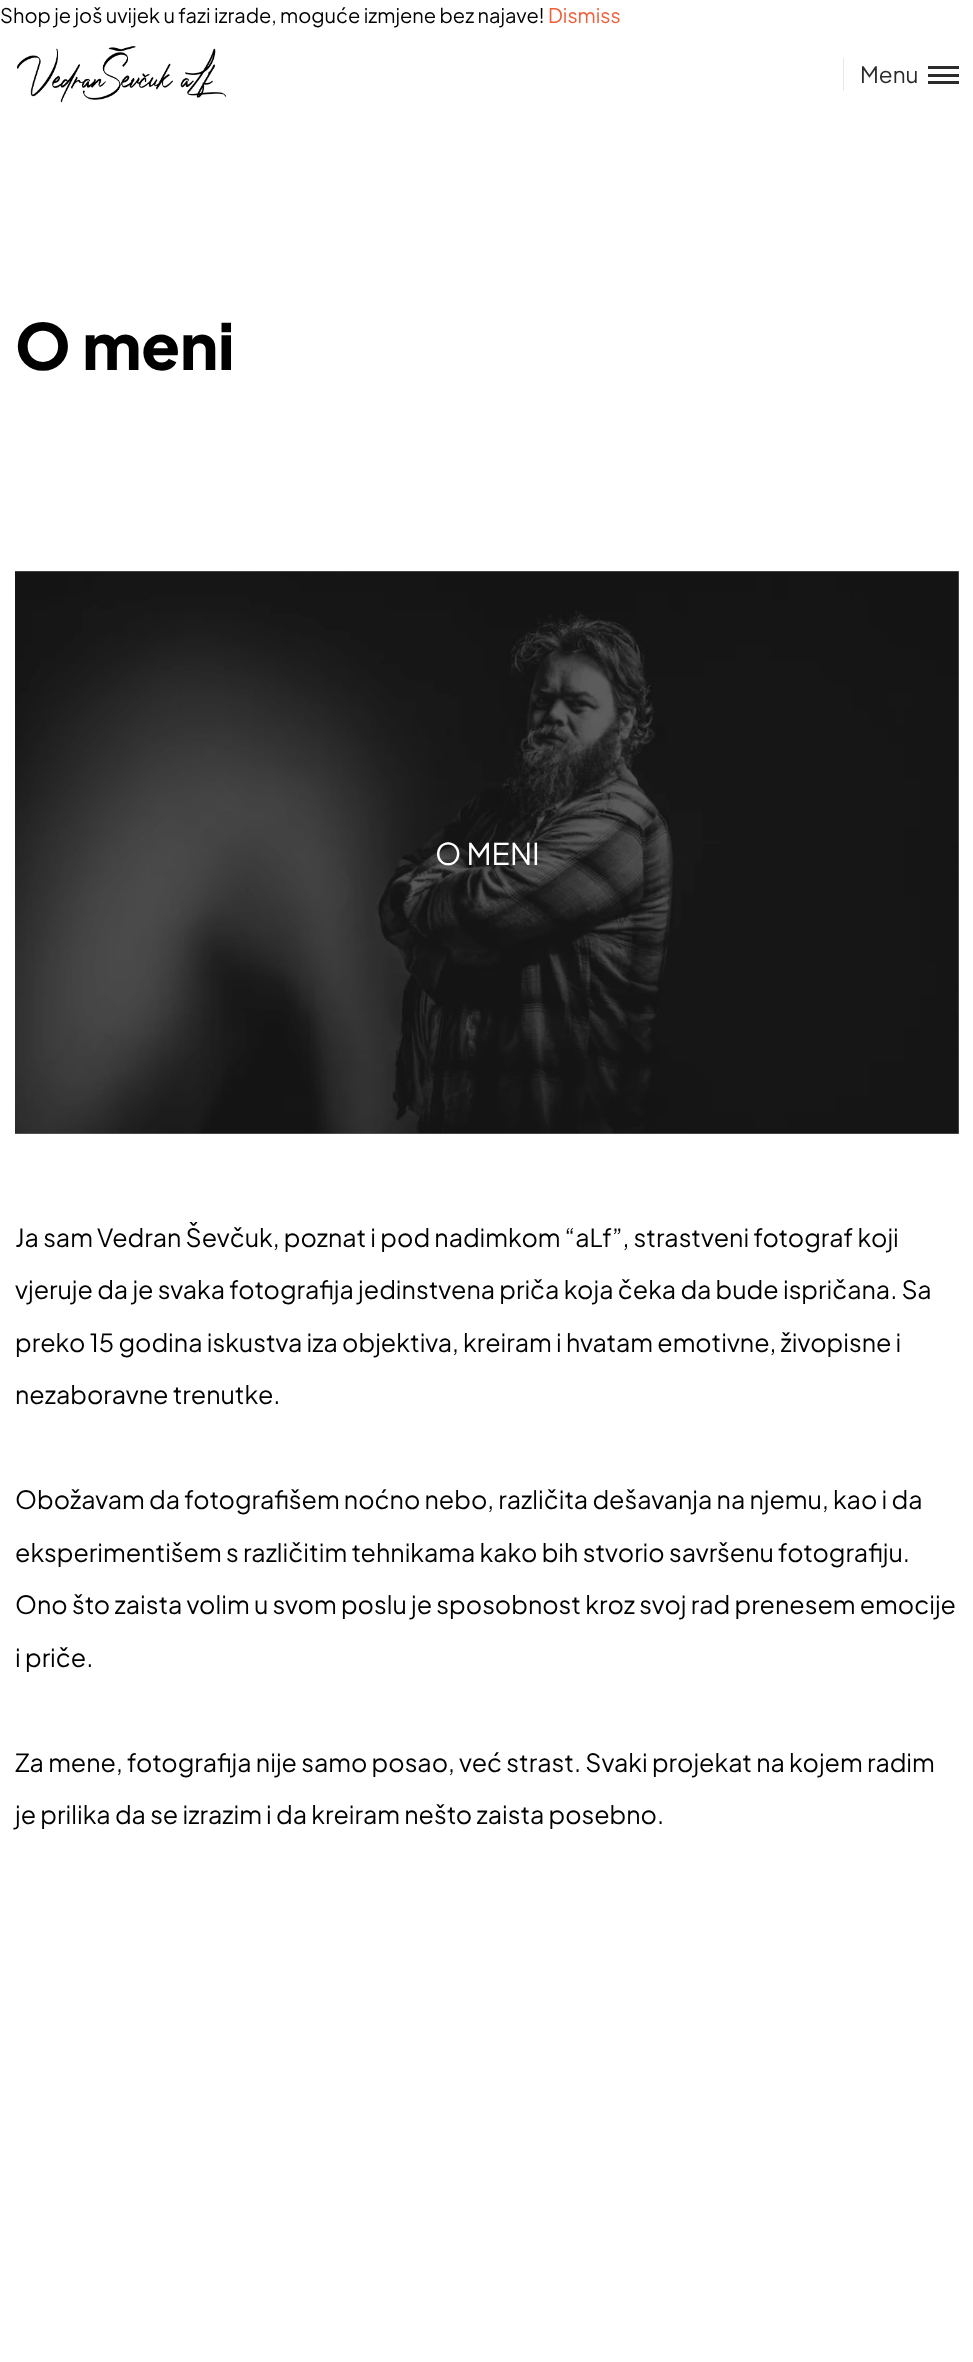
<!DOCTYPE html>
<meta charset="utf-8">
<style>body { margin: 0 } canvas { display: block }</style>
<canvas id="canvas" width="973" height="2362"></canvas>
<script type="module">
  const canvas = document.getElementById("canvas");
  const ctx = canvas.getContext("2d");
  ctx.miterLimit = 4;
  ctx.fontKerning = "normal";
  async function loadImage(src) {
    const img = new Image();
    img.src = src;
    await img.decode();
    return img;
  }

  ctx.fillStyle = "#ffffff";
  ctx.fillRect(0, 0, 973, 2362);
  ctx.fillStyle = "#808080";
  ctx.fillRect(15, 571, 944, 563);
  ctx.font = "20px Plus Jakarta Sans";
  ctx.fillStyle = "#000000";
  ctx.fillText("Shop je još uvijek u fazi izrade, moguće izmjene bez najave!", 0, 23);
  ctx.fillStyle = "#ef5d39";
  ctx.fillText("Dismiss", 548, 23);
  ctx.drawImage(await loadImage("img1.png"), 16, 46, 211, 57);
  ctx.fillStyle = "#e8e8e8";
  ctx.fillRect(843, 58, 1, 33);
  ctx.font = "22.5px Plus Jakarta Sans";
  ctx.fillStyle = "#2b2b2b";
  ctx.fillText("Menu", 860, 83);
  ctx.fillRect(928, 74, 31, 3);
  ctx.fillRect(928, 66, 31, 3);
  ctx.fillRect(928, 81, 31, 3);
  ctx.font = "800 63.5px Plus Jakarta Sans";
  ctx.fillStyle = "#000000";
  ctx.fillText("O meni", 15, 370);
  ctx.drawImage(await loadImage("img2.png"), 15, 571, 944, 563);
  ctx.font = "30px Plus Jakarta Sans";
  ctx.fillStyle = "#ffffff";
  ctx.fillText("O MENI", 435, 865);
  ctx.font = "25px Plus Jakarta Sans";
  ctx.fillStyle = "#000000";
  ctx.fillText("Ja sam Vedran Ševčuk, poznat i pod nadimkom “aLf”, strastveni fotograf koji", 15, 1247);
  ctx.fillText("vjeruje da je svaka fotografija jedinstvena priča koja čeka da bude ispričana. Sa", 15, 1299);
  ctx.fillText("preko 15 godina iskustva iza objektiva, kreiram i hvatam emotivne, živopisne i", 15, 1352);
  ctx.fillText("nezaboravne trenutke.", 15, 1404);
  ctx.fillText("Obožavam da fotografišem noćno nebo, različita dešavanja na njemu, kao i da", 15, 1509);
  ctx.fillText("eksperimentišem s različitim tehnikama kako bih stvorio savršenu fotografiju.", 15, 1562);
  ctx.fillText("Ono što zaista volim u svom poslu je sposobnost kroz svoj rad prenesem emocije", 15, 1614);
  ctx.fillText("i priče.", 15, 1667);
  ctx.fillText("Za mene, fotografija nije samo posao, već strast. Svaki projekat na kojem radim", 15, 1772);
  ctx.fillText("je prilika da se izrazim i da kreiram nešto zaista posebno.", 15, 1824);
</script>
